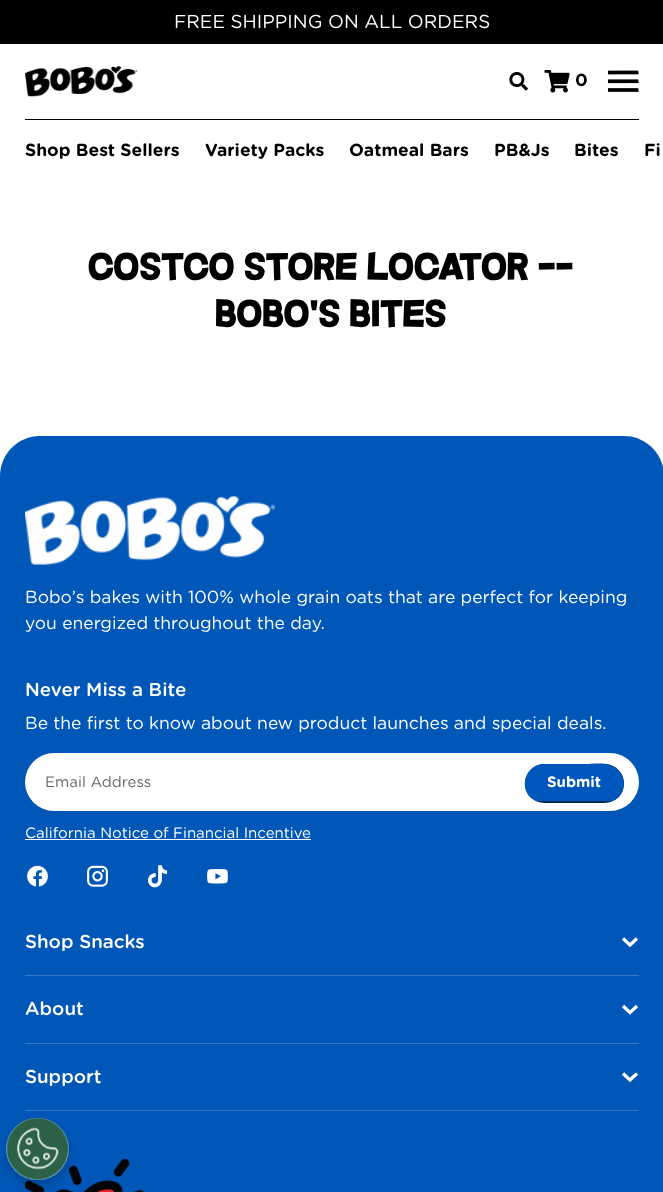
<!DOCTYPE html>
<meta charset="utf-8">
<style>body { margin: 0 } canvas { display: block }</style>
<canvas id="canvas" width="663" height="1192"></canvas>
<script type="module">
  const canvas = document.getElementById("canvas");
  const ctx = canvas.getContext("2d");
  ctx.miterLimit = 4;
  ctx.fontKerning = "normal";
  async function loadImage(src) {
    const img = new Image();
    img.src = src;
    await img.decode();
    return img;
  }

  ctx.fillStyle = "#ffffff";
  ctx.fillRect(0, 0, 663, 1192);
  ctx.fillStyle = "#000000";
  ctx.fillRect(0, 0, 663, 44);
  ctx.font = "18.75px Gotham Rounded";
  ctx.fillStyle = "#ffffff";
  ctx.fillText("FREE SHIPPING ON ALL ORDERS", 174, 28);
  ctx.drawImage(await loadImage("img1.png"), 25, 66, 113, 31);
  ctx.drawImage(await loadImage("img2.png"), 509, 72, 19, 19);
  ctx.drawImage(await loadImage("img3.png"), 544, 70, 26, 23);
  ctx.font = "bold 17.5px Gotham Rounded";
  ctx.fillStyle = "#000000";
  ctx.fillText("0", 575, 86);
  ctx.drawImage(await loadImage("img4.png"), 608, 70, 31, 22);
  ctx.fillRect(25, 119, 614, 1);
  ctx.fillText("Shop Best Sellers", 25, 156);
  ctx.fillText("Variety Packs", 205, 156);
  ctx.fillText("Oatmeal Bars", 349, 156);
  ctx.fillText("PB&Js", 494, 156);
  ctx.fillText("Bites", 574, 156);
  ctx.fillText("Fi", 644, 156);
  ctx.font = "37.5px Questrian";
  ctx.fillText("COSTCO STORE LOCATOR --", 89, 279);
  ctx.fillText("BOBO'S BITES", 216, 326);
  ctx.fillStyle = "#0057b8";
  ctx.beginPath();
  ctx.moveTo(40, 436);
  ctx.lineTo(624, 436);
  ctx.bezierCurveTo(646, 436, 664, 454, 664, 476);
  ctx.lineTo(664, 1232);
  ctx.lineTo(0, 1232);
  ctx.lineTo(0, 476);
  ctx.bezierCurveTo(0, 454, 18, 436, 40, 436);
  ctx.closePath();
  ctx.fill();
  ctx.drawImage(await loadImage("img5.png"), 25, 496, 250, 69);
  ctx.font = "17.5px Gotham Rounded";
  ctx.fillStyle = "#ffffff";
  ctx.fillText("Bobo’s bakes with 100% whole grain oats that are perfect for keeping", 25, 603);
  ctx.fillText("you energized throughout the day.", 25, 629);
  ctx.font = "500 18.75px Gotham Rounded";
  ctx.fillText("Never Miss a Bite", 25, 696);
  ctx.font = "17.5px Gotham Rounded";
  ctx.fillText("Be the first to know about new product launches and special deals.", 25, 729);
  ctx.beginPath();
  ctx.roundRect(25, 753, 614, 58, 29);
  ctx.fill();
  ctx.font = "15px Gotham Rounded";
  ctx.fillStyle = "#666666";
  ctx.fillText("Email Address", 45, 787);
  ctx.fillStyle = "#002855";
  ctx.beginPath();
  ctx.roundRect(525, 764, 99, 39, 19.5);
  ctx.fill();
  ctx.fillStyle = "#0057bb";
  ctx.beginPath();
  ctx.moveTo(544, 764);
  ctx.lineTo(584, 764);
  ctx.bezierCurveTo(593, 764, 605, 762, 612, 766);
  ctx.bezierCurveTo(625, 771, 628, 789, 618, 798);
  ctx.lineTo(613, 801);
  ctx.lineTo(536, 801);
  ctx.lineTo(531, 798);
  ctx.bezierCurveTo(518, 786, 527, 764, 544, 764);
  ctx.closePath();
  ctx.fill();
  ctx.font = "bold 15px Gotham Rounded";
  ctx.fillStyle = "#ffffff";
  ctx.fillText("Submit", 547, 787);
  ctx.font = "15px Gotham Rounded";
  ctx.fillText("California Notice of Financial Incentive", 25, 838);
  ctx.fillRect(25, 839, 286, 1);
  ctx.drawImage(await loadImage("img6.png"), 27, 865, 21, 22);
  ctx.drawImage(await loadImage("img7.png"), 87, 865, 21, 22);
  ctx.drawImage(await loadImage("img8.png"), 148, 865, 20, 23);
  ctx.drawImage(await loadImage("img9.png"), 207, 868, 21, 16);
  ctx.fillStyle = "#3379c6";
  ctx.fillRect(25, 975, 614, 1);
  ctx.font = "500 18.75px Gotham Rounded";
  ctx.fillStyle = "#ffffff";
  ctx.fillText("Shop Snacks", 25, 948);
  ctx.beginPath();
  ctx.moveTo(637, 938.5);
  ctx.lineTo(630, 945);
  ctx.lineTo(623, 938.5);
  ctx.strokeStyle = "#ffffff";
  ctx.lineWidth = 3.2;
  ctx.stroke();
  ctx.fillStyle = "#3379c6";
  ctx.fillRect(25, 1043, 614, 1);
  ctx.fillStyle = "#ffffff";
  ctx.fillText("About", 25, 1015);
  ctx.beginPath();
  ctx.moveTo(637, 1006);
  ctx.lineTo(630, 1012.5);
  ctx.lineTo(623, 1006);
  ctx.stroke();
  ctx.fillStyle = "#3379c6";
  ctx.fillRect(25, 1110, 614, 1);
  ctx.fillStyle = "#ffffff";
  ctx.fillText("Support", 25, 1083);
  ctx.beginPath();
  ctx.moveTo(637, 1073.5);
  ctx.lineTo(630, 1080);
  ctx.lineTo(623, 1073.5);
  ctx.stroke();
  ctx.drawImage(await loadImage("img10.png"), 25, 1158, 119, 34);
  ctx.fillStyle = "rgba(0, 0, 0, 0.2)";
  ctx.filter = "blur(5px)";
  ctx.beginPath();
  ctx.roundRect(6, 1123, 63, 62, 31);
  ctx.fill();
  ctx.filter = "none";
  ctx.fillStyle = "#6aaae4";
  ctx.beginPath();
  ctx.roundRect(6, 1118, 63, 62, 31);
  ctx.fill();
  ctx.drawImage(await loadImage("img11.png"), 6, 1117, 63, 63);
</script>
